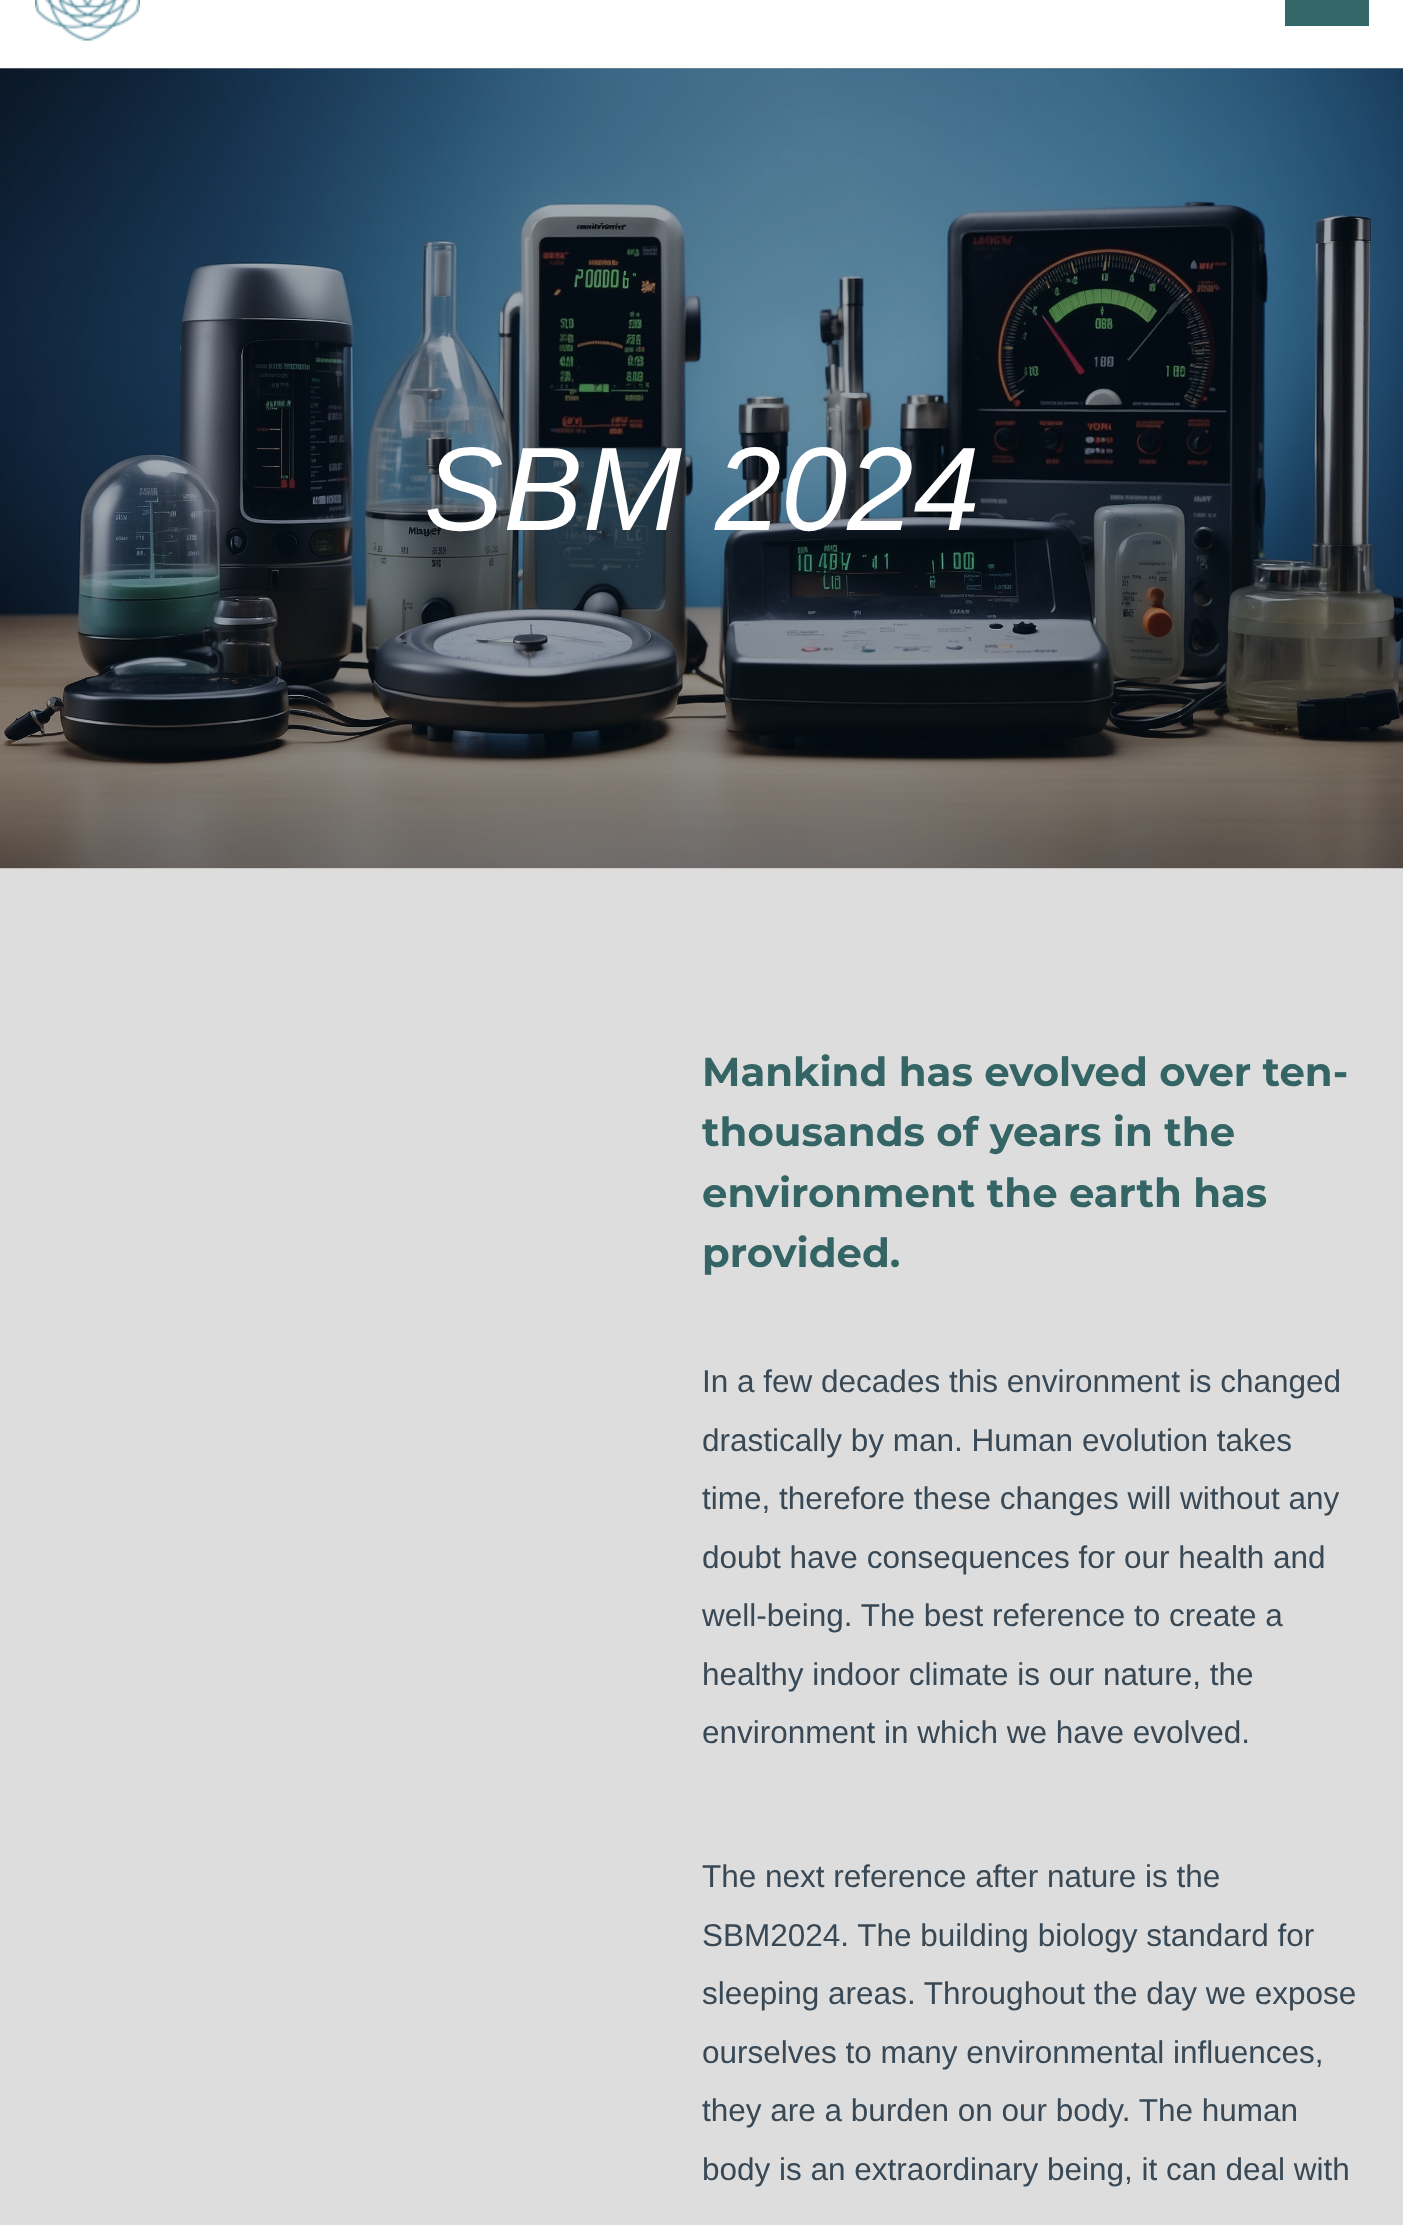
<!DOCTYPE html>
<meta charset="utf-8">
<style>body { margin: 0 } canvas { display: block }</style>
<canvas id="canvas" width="1403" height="2225"></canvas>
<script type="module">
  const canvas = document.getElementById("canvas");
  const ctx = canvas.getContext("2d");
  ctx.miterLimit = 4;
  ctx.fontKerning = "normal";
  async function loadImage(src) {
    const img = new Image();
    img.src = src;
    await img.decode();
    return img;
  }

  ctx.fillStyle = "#dddddd";
  ctx.fillRect(0, 0, 1403, 2225);
  ctx.fillStyle = "#8e959b";
  ctx.fillRect(0, 68, 1403, 1);
  ctx.fillStyle = "#ffffff";
  ctx.fillRect(0, 0, 1403, 68);
  ctx.drawImage(await loadImage("img1.png"), 35, 0, 105, 41);
  ctx.fillStyle = "#336666";
  ctx.fillRect(1285, 0, 84, 26);
  ctx.drawImage(await loadImage("img2.png"), 0, 68, 1403, 801);
  ctx.font = "italic 119px Liberation Sans";
  ctx.fillStyle = "#ffffff";
  ctx.fillText("SBM 2024", 424, 530);
  ctx.font = "bold 40.25px Montserrat";
  ctx.fillStyle = "#346464";
  ctx.fillText("Mankind has evolved over ten-", 702, 1086);
  ctx.fillText("thousands of years in the", 702, 1146);
  ctx.fillText("environment the earth has", 702, 1207);
  ctx.fillText("provided.", 702, 1267);
  ctx.font = "31.5px Liberation Sans";
  ctx.fillStyle = "#384855";
  ctx.fillText("In a few decades this environment is changed", 702, 1392);
  ctx.fillText("drastically by man. Human evolution takes", 702, 1451);
  ctx.fillText("time, therefore these changes will without any", 702, 1509);
  ctx.fillText("doubt have consequences for our health and", 702, 1568);
  ctx.fillText("well-being. The best reference to create a", 702, 1626);
  ctx.fillText("healthy indoor climate is our nature, the", 702, 1685);
  ctx.fillText("environment in which we have evolved.", 702, 1743);
  ctx.fillText("The next reference after nature is the", 702, 1887);
  ctx.fillText("SBM2024. The building biology standard for", 702, 1946);
  ctx.fillText("sleeping areas. Throughout the day we expose", 702, 2004);
  ctx.fillText("ourselves to many environmental influences,", 702, 2063);
  ctx.fillText("they are a burden on our body. The human", 702, 2121);
  ctx.fillText("body is an extraordinary being, it can deal with", 702, 2180);
</script>
